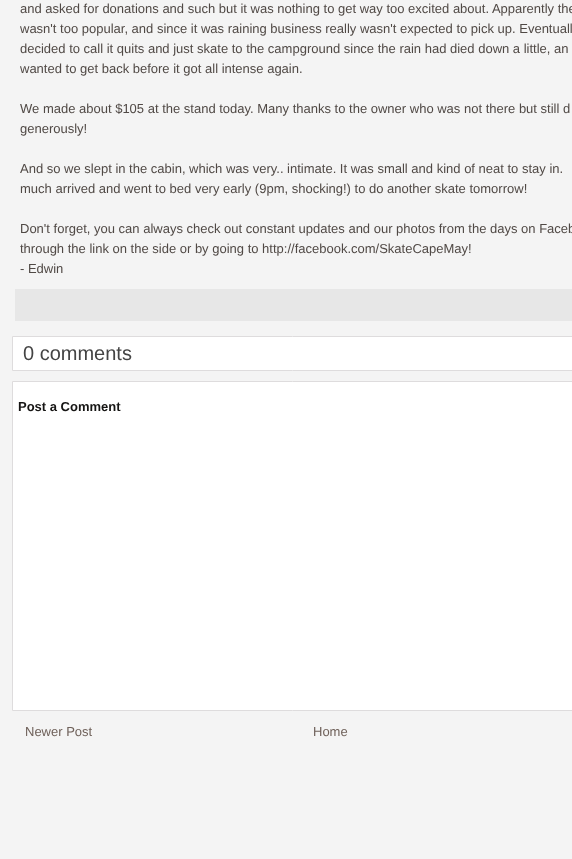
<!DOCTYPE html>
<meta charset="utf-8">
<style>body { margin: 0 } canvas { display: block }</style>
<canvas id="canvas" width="572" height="859"></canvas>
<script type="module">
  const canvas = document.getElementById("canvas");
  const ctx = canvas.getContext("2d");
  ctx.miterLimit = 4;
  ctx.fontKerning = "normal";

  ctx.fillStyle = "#f4f4f4";
  ctx.fillRect(0, 0, 572, 859);
  ctx.font = "13px Liberation Sans";
  ctx.fillStyle = "#504945";
  ctx.fillText("and asked for donations and such but it was nothing to get way too excited about. Apparently the", 20, 13);
  ctx.fillText("wasn't too popular, and since it was raining business really wasn't expected to pick up. Eventuall", 20, 33);
  ctx.fillText("decided to call it quits and just skate to the campground since the rain had died down a little, an", 20, 53);
  ctx.fillText("wanted to get back before it got all intense again.", 20, 73);
  ctx.fillText("We made about $105 at the stand today. Many thanks to the owner who was not there but still d", 20, 113);
  ctx.fillText("generously!", 20, 133);
  ctx.fillText("And so we slept in the cabin, which was very.. intimate. It was small and kind of neat to stay in.", 20, 173);
  ctx.fillText("much arrived and went to bed very early (9pm, shocking!) to do another skate tomorrow!", 20, 193);
  ctx.fillText("Don't forget, you can always check out constant updates and our photos from the days on Faceb", 20, 233);
  ctx.fillText("through the link on the side or by going to http://facebook.com/SkateCapeMay!", 20, 253);
  ctx.fillText("- Edwin", 20, 273);
  ctx.fillStyle = "#e7e7e7";
  ctx.fillRect(15, 289, 557, 32);
  ctx.fillStyle = "#ffffff";
  ctx.beginPath();
  ctx.rect(12.5, 336.5, 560, 34);
  ctx.fill();
  ctx.strokeStyle = "#dedcdd";
  ctx.stroke();
  ctx.font = "20px Liberation Sans";
  ctx.fillStyle = "#444444";
  ctx.fillText("0 comments", 23, 360);
  ctx.fillStyle = "#ffffff";
  ctx.beginPath();
  ctx.rect(12.5, 381.5, 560, 329);
  ctx.fill();
  ctx.stroke();
  ctx.font = "bold 13px Liberation Sans";
  ctx.fillStyle = "#161514";
  ctx.fillText("Post a Comment", 18, 411);
  ctx.font = "13px Liberation Sans";
  ctx.fillStyle = "#6f615a";
  ctx.fillText("Newer Post", 25, 736);
  ctx.fillText("Home", 313, 736);
</script>
